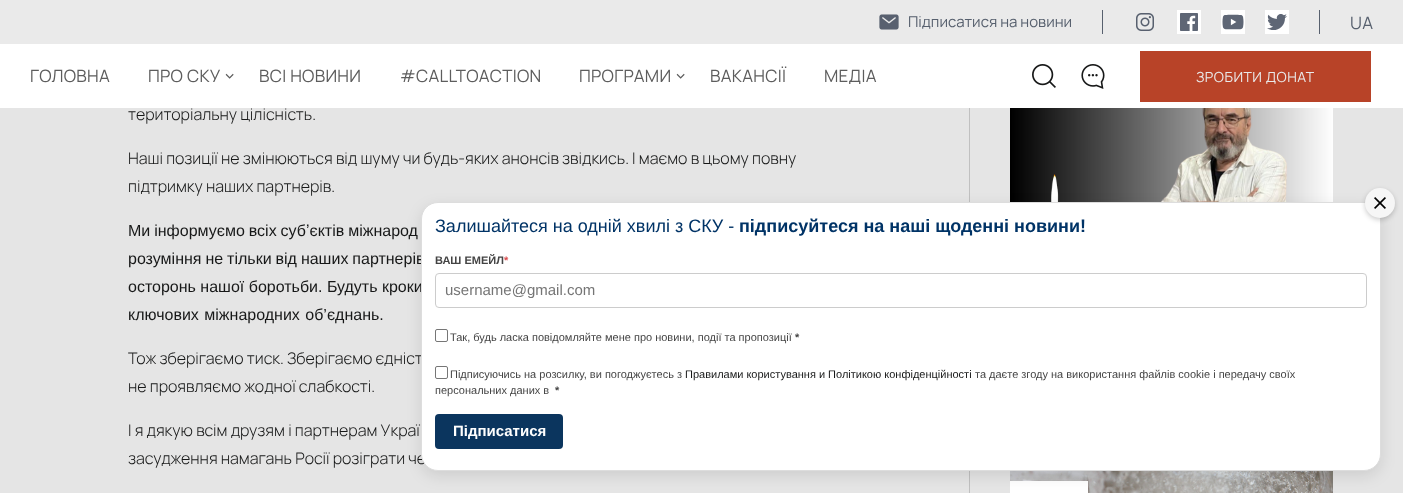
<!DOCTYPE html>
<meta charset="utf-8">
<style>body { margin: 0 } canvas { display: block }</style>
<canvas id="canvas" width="1403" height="493"></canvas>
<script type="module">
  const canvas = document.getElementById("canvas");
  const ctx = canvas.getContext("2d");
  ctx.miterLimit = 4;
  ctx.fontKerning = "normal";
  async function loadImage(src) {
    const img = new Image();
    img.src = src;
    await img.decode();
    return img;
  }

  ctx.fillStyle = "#e5e5e5";
  ctx.fillRect(0, 0, 1403, 493);
  ctx.fillStyle = "#ffffff";
  ctx.fillRect(0, 44, 1403, 64);
  ctx.fillStyle = "#eaeaea";
  ctx.fillRect(0, 0, 1403, 44);
  ctx.drawImage(await loadImage("img1.png"), 879, 14, 20, 16);
  ctx.font = "15px Manrope";
  ctx.fillStyle = "#57606e";
  ctx.fillText("Підписатися на новини", 908, 27);
  ctx.fillRect(1319, 10, 1, 24);
  ctx.fillRect(1102, 10, 1, 24);
  ctx.drawImage(await loadImage("img2.png"), 1136, 13, 18, 18);
  ctx.drawImage(await loadImage("img3.png"), 1177, 10, 24, 24);
  ctx.drawImage(await loadImage("img4.png"), 1221, 10, 24, 24);
  ctx.drawImage(await loadImage("img5.png"), 1265, 10, 24, 24);
  ctx.letterSpacing = "0.3px";
  ctx.font = "17px Manrope";
  ctx.fillText("UA", 1350, 29);
  ctx.fillStyle = "#5d5d5d";
  ctx.fillText("ГОЛОВНА", 30, 82);
  ctx.fillText("ПРО СКУ", 148, 82);
  ctx.save();
  ctx.translate(235, 81);
  ctx.rotate(-90 * Math.PI / 180);
  ctx.fillText("‹", 0, 0);
  ctx.restore();
  ctx.fillText("ВСІ НОВИНИ", 259, 82);
  ctx.fillText("#CALLTOACTION", 400, 82);
  ctx.fillText("ПРОГРАМИ", 579, 82);
  ctx.save();
  ctx.translate(686, 81);
  ctx.rotate(-90 * Math.PI / 180);
  ctx.fillText("‹", 0, 0);
  ctx.restore();
  ctx.fillText("ВАКАНСІЇ", 710, 82);
  ctx.fillText("МЕДІА", 824, 82);
  ctx.drawImage(await loadImage("img6.png"), 1032, 64, 24, 24);
  ctx.drawImage(await loadImage("img7.png"), 1081, 64, 24, 25);
  ctx.fillStyle = "#b84328";
  ctx.fillRect(1140, 51, 231, 51);
  ctx.letterSpacing = "0.5px";
  ctx.font = "14px Manrope";
  ctx.fillStyle = "#eaeaea";
  ctx.fillText("ЗРОБИТИ ДОНАТ", 1196, 82);
  ctx.fillStyle = "#c0c0c0";
  ctx.fillRect(969, 108, 1, 385);
  ctx.letterSpacing = "0px";
  ctx.font = "300 16px Manrope";
  ctx.fillStyle = "#171818";
  ctx.fillText("територіальну цілісність.", 128, 120);
  ctx.fillText("Наші позиції не змінюються від шуму чи будь-яких анонсів звідкись. І маємо в цьому повну", 128, 164);
  ctx.fillText("підтримку наших партнерів.", 128, 192);
  ctx.wordSpacing = "-0.5px";
  ctx.font = "16px Liberation Sans";
  ctx.fillText("Ми інформуємо всіх субʼєктів міжнарод", 128, 236);
  ctx.fillText("розуміння не тільки від наших партнерів", 128, 264);
  ctx.wordSpacing = "0px";
  ctx.fillText("осторонь нашої боротьби. Будуть кроки", 128, 292);
  ctx.wordSpacing = "1px";
  ctx.fillText("ключових міжнародних об’єднань.", 128, 320);
  ctx.wordSpacing = "0px";
  ctx.font = "300 16px Manrope";
  ctx.fillText("Тож зберігаємо тиск. Зберігаємо єдніст", 128, 364);
  ctx.fillText("не проявляємо жодної слабкості.", 128, 392);
  ctx.fillText("І я дякую всім друзям і партнерам Украї", 128, 436);
  ctx.fillText("засудження намагань Росії розіграти че", 128, 464);
  ctx.drawImage(await loadImage("img8.png"), 1010, 108, 323, 94);
  ctx.drawImage(await loadImage("img9.png"), 1010, 471, 323, 22);
  ctx.fillStyle = "#ffffff";
  ctx.fillRect(1010, 481, 78, 12);
  ctx.fillStyle = "rgba(0, 0, 0, 0.1)";
  ctx.filter = "blur(7.5px)";
  ctx.beginPath();
  ctx.roundRect(421, 207, 960, 269, 17);
  ctx.fill();
  ctx.filter = "none";
  ctx.fillStyle = "#ffffff";
  ctx.beginPath();
  ctx.roundRect(421.5, 202.5, 959, 268, 16.5);
  ctx.fill();
  ctx.strokeStyle = "#dddddd";
  ctx.stroke();
  ctx.fillStyle = "rgba(0, 0, 0, 0.2)";
  ctx.filter = "blur(2.5px)";
  ctx.beginPath();
  ctx.roundRect(1365, 190, 30, 30, 15);
  ctx.fill();
  ctx.filter = "none";
  ctx.fillStyle = "#f6f6f6";
  ctx.beginPath();
  ctx.arc(1380, 203, 15, 0, Math.PI * 2);
  ctx.fill();
  ctx.drawImage(await loadImage("img10.png"), 1374, 197, 12, 12);
  ctx.font = "18px Liberation Sans";
  ctx.fillStyle = "#003366";
  ctx.fillText("Залишайтеся на одній хвилі з СКУ -", 435, 232);
  ctx.font = "bold 18px Liberation Sans";
  ctx.fillText("підписуйтеся на наші щоденні новини!", 739, 232);
  ctx.font = "bold 11px Liberation Sans";
  ctx.fillStyle = "#444444";
  ctx.fillText("ВАШ ЕМЕЙЛ", 435, 264);
  ctx.fillStyle = "#d94b4d";
  ctx.fillText("*", 504, 264);
  ctx.beginPath();
  ctx.roundRect(435.5, 273.5, 931, 34, 3.5);
  ctx.strokeStyle = "#cccccc";
  ctx.stroke();
  ctx.font = "15px Liberation Sans";
  ctx.fillStyle = "#757575";
  ctx.fillText("username@gmail.com", 445, 295);
  ctx.beginPath();
  ctx.roundRect(435.5, 329.5, 12, 12, 1.5);
  ctx.strokeStyle = "#767676";
  ctx.stroke();
  ctx.font = "11px Liberation Sans";
  ctx.fillStyle = "#444444";
  ctx.fillText("Так, будь ласка повідомляйте мене про новини, події та пропозиції", 450, 341);
  ctx.font = "bold 11px Liberation Sans";
  ctx.fillText("*", 795, 341);
  ctx.beginPath();
  ctx.roundRect(435.5, 366.5, 12, 12, 1.5);
  ctx.stroke();
  ctx.font = "11px Liberation Sans";
  ctx.fillText("Підписуючись на розсилку, ви погоджуєтесь з", 450, 378);
  ctx.fillStyle = "#171818";
  ctx.fillText("Правилами користування и Політикою конфіденційності", 685, 378);
  ctx.fillStyle = "#444444";
  ctx.fillText("та даєте згоду на використання файлів cookie і передачу своїх", 975, 378);
  ctx.fillText("персональних даних в", 435, 394);
  ctx.font = "bold 11px Liberation Sans";
  ctx.fillText("*", 555, 394);
  ctx.fillStyle = "#0b355e";
  ctx.beginPath();
  ctx.roundRect(435, 414, 128, 35, 4);
  ctx.fill();
  ctx.font = "bold 15px Liberation Sans";
  ctx.fillStyle = "#ffffff";
  ctx.fillText("Підписатися", 453, 436);
</script>
